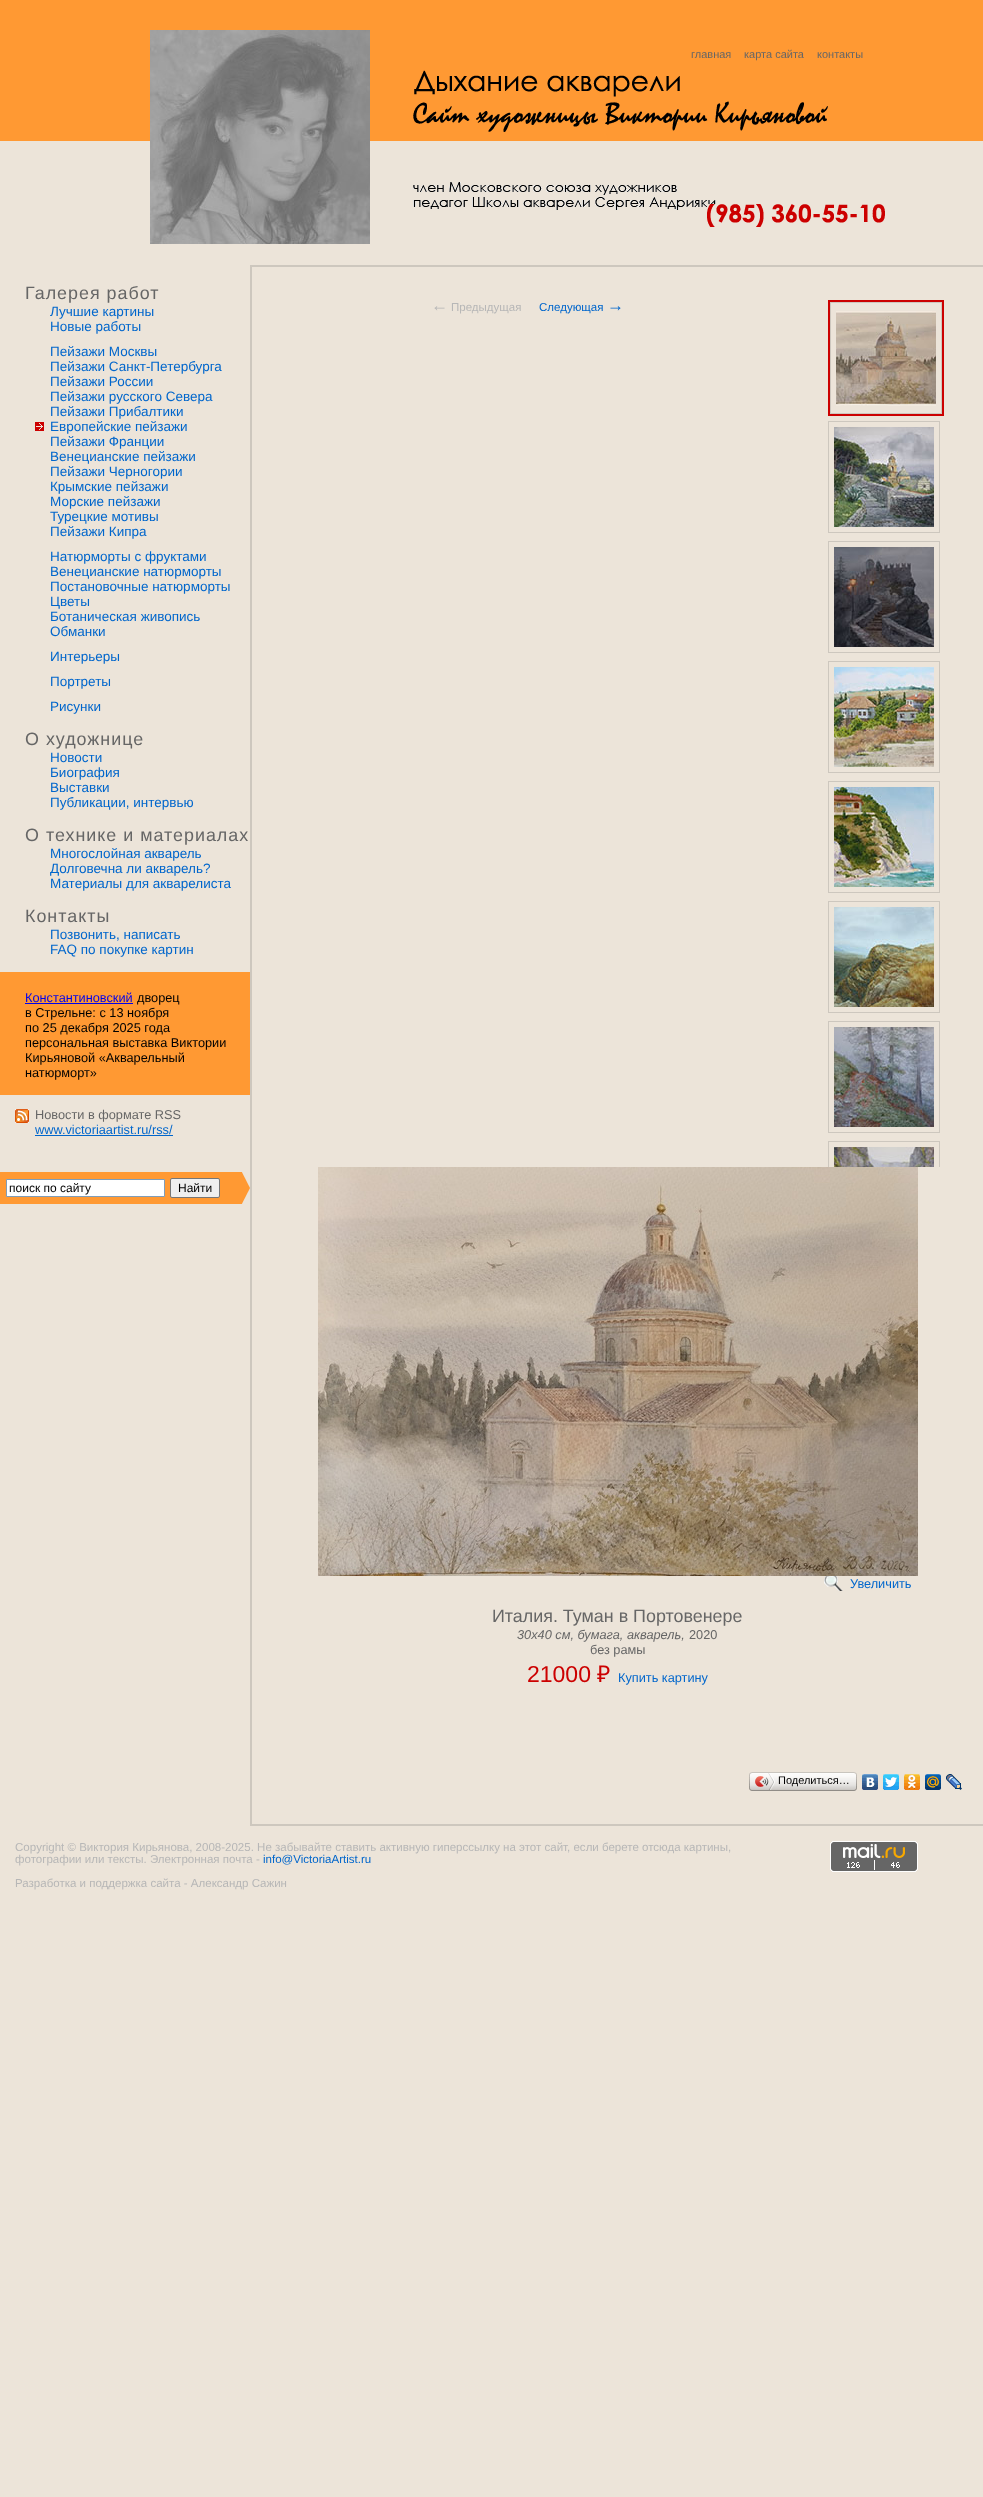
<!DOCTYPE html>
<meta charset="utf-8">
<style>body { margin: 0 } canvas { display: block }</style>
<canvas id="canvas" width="983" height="2497"></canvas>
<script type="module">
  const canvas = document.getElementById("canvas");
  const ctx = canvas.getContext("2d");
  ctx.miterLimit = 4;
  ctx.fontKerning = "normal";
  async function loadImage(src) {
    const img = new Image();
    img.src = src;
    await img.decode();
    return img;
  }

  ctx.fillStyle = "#ece4d9";
  ctx.fillRect(0, 0, 983, 2497);
  ctx.fillStyle = "#ff9933";
  ctx.fillRect(0, 0, 983, 141);
  ctx.drawImage(await loadImage("img1.png"), 150, 30, 220, 214);
  ctx.drawImage(await loadImage("img2.png"), 413, 70, 415, 140);
  ctx.font = "11px Liberation Sans";
  ctx.fillStyle = "#666666";
  ctx.fillText("главная", 691, 58);
  ctx.fillText("карта сайта", 744, 58);
  ctx.fillText("контакты", 817, 58);
  ctx.drawImage(await loadImage("img3.png"), 707, 204, 178, 23);
  ctx.letterSpacing = "1px";
  ctx.font = "17.9px Liberation Sans";
  ctx.fillText("Галерея работ", 25, 299);
  ctx.letterSpacing = "0px";
  ctx.font = "13.5px Liberation Sans";
  ctx.fillStyle = "#0066cc";
  ctx.fillText("Лучшие картины", 50, 316);
  ctx.fillText("Новые работы", 50, 331);
  ctx.fillText("Пейзажи Москвы", 50, 356);
  ctx.fillText("Пейзажи Санкт-Петербурга", 50, 371);
  ctx.fillText("Пейзажи России", 50, 386);
  ctx.fillText("Пейзажи русского Севера", 50, 401);
  ctx.fillText("Пейзажи Прибалтики", 50, 416);
  ctx.drawImage(await loadImage("img4.png"), 35, 422, 9, 9);
  ctx.fillText("Европейские пейзажи", 50, 431);
  ctx.fillText("Пейзажи Франции", 50, 446);
  ctx.fillText("Венецианские пейзажи", 50, 461);
  ctx.fillText("Пейзажи Черногории", 50, 476);
  ctx.fillText("Крымские пейзажи", 50, 491);
  ctx.fillText("Морские пейзажи", 50, 506);
  ctx.fillText("Турецкие мотивы", 50, 521);
  ctx.fillText("Пейзажи Кипра", 50, 536);
  ctx.fillText("Натюрморты с фруктами", 50, 561);
  ctx.fillText("Венецианские натюрморты", 50, 576);
  ctx.fillText("Постановочные натюрморты", 50, 591);
  ctx.fillText("Цветы", 50, 606);
  ctx.fillText("Ботаническая живопись", 50, 621);
  ctx.fillText("Обманки", 50, 636);
  ctx.fillText("Интерьеры", 50, 661);
  ctx.fillText("Портреты", 50, 686);
  ctx.fillText("Рисунки", 50, 711);
  ctx.letterSpacing = "1px";
  ctx.font = "17.9px Liberation Sans";
  ctx.fillStyle = "#666666";
  ctx.fillText("О художнице", 25, 745);
  ctx.letterSpacing = "0px";
  ctx.font = "13.5px Liberation Sans";
  ctx.fillStyle = "#0066cc";
  ctx.fillText("Новости", 50, 762);
  ctx.fillText("Биография", 50, 777);
  ctx.fillText("Выставки", 50, 792);
  ctx.fillText("Публикации, интервью", 50, 807);
  ctx.letterSpacing = "1px";
  ctx.font = "17.9px Liberation Sans";
  ctx.fillStyle = "#666666";
  ctx.fillText("О технике и материалах", 25, 841);
  ctx.letterSpacing = "0px";
  ctx.font = "13.5px Liberation Sans";
  ctx.fillStyle = "#0066cc";
  ctx.fillText("Многослойная акварель", 50, 858);
  ctx.fillText("Долговечна ли акварель?", 50, 873);
  ctx.fillText("Материалы для акварелиста", 50, 888);
  ctx.letterSpacing = "1px";
  ctx.font = "17.9px Liberation Sans";
  ctx.fillStyle = "#666666";
  ctx.fillText("Контакты", 25, 922);
  ctx.letterSpacing = "0px";
  ctx.font = "13.5px Liberation Sans";
  ctx.fillStyle = "#0066cc";
  ctx.fillText("Позвонить, написать", 50, 939);
  ctx.fillText("FAQ по покупке картин", 50, 954);
  ctx.fillStyle = "#ff9933";
  ctx.fillRect(0, 972, 250, 123);
  ctx.font = "12.75px Liberation Sans";
  ctx.fillStyle = "#0000ee";
  ctx.fillText("Константиновский", 25, 1002);
  ctx.fillRect(25, 1003, 108, 1);
  ctx.fillStyle = "#000000";
  ctx.fillText("дворец", 137, 1002);
  ctx.fillText("в Стрельне: с 13 ноября", 25, 1017);
  ctx.fillText("по 25 декабря 2025 года", 25, 1032);
  ctx.fillText("персональная выставка Виктории", 25, 1047);
  ctx.fillText("Кирьяновой «Акварельный", 25, 1062);
  ctx.fillText("натюрморт»", 25, 1077);
  ctx.drawImage(await loadImage("img5.png"), 15, 1109, 14, 14);
  ctx.fillStyle = "#666666";
  ctx.fillText("Новости в формате RSS", 35, 1119);
  ctx.fillStyle = "#0066cc";
  ctx.fillText("www.victoriaartist.ru/rss/", 35, 1134);
  ctx.fillRect(35, 1135, 138, 1);
  ctx.fillStyle = "#ff9933";
  ctx.fillRect(0, 1172, 220, 32);
  ctx.fillStyle = "#ffffff";
  ctx.beginPath();
  ctx.rect(6.5, 1179.5, 158, 17);
  ctx.fill();
  ctx.strokeStyle = "#7f9db9";
  ctx.stroke();
  ctx.font = "12px Liberation Sans";
  ctx.fillStyle = "#000000";
  ctx.fillText("поиск по сайту", 9, 1192);
  ctx.fillStyle = "#efefef";
  ctx.beginPath();
  ctx.roundRect(170.5, 1178.5, 49, 19, 1.5);
  ctx.fill();
  ctx.strokeStyle = "#767676";
  ctx.stroke();
  ctx.fillStyle = "#000000";
  ctx.fillText("Найти", 178, 1192);
  ctx.save();
  ctx.beginPath();
  ctx.rect(220, 1172, 30, 32);
  ctx.clip();
  ctx.fillStyle = "#ff9933";
  ctx.beginPath();
  ctx.moveTo(220, 1247);
  ctx.lineTo(220, 1129);
  ctx.lineTo(250, 1188);
  ctx.closePath();
  ctx.fill();
  ctx.restore();
  ctx.fillStyle = "#cdc7be";
  ctx.fillRect(250, 265, 733, 2);
  ctx.fillRect(250, 1824, 733, 2);
  ctx.fillRect(250, 265, 2, 1561);
  ctx.strokeStyle = "#cc0000";
  ctx.lineWidth = 2;
  ctx.strokeRect(829, 301, 114, 114);
  ctx.strokeStyle = "#cdc7be";
  ctx.lineWidth = 1;
  ctx.strokeRect(830.5, 302.5, 111, 111);
  ctx.drawImage(await loadImage("img6.png"), 836, 311, 100, 95);
  ctx.strokeRect(828.5, 421.5, 111, 111);
  ctx.drawImage(await loadImage("img7.png"), 834, 427, 100, 100);
  ctx.strokeRect(828.5, 541.5, 111, 111);
  ctx.drawImage(await loadImage("img8.png"), 834, 547, 100, 100);
  ctx.strokeRect(828.5, 661.5, 111, 111);
  ctx.drawImage(await loadImage("img9.png"), 834, 667, 100, 100);
  ctx.strokeRect(828.5, 781.5, 111, 111);
  ctx.drawImage(await loadImage("img10.png"), 834, 787, 100, 100);
  ctx.strokeRect(828.5, 901.5, 111, 111);
  ctx.drawImage(await loadImage("img11.png"), 834, 907, 100, 100);
  ctx.strokeRect(828.5, 1021.5, 111, 111);
  ctx.drawImage(await loadImage("img12.png"), 834, 1027, 100, 100);
  ctx.drawImage(await loadImage("img14.png"), 318, 1167, 600, 409);
  ctx.save();
  ctx.beginPath();
  ctx.rect(788, 282, 180, 885);
  ctx.clip();
  ctx.strokeRect(828.5, 1141.5, 111, 111);
  ctx.restore();
  ctx.drawImage(await loadImage("img13.png"), 834, 1147, 100, 20);
  ctx.font = "17px Liberation Sans";
  ctx.fillStyle = "#b7b7b7";
  ctx.fillText("←", 431, 311);
  ctx.font = "11.52px Liberation Sans";
  ctx.fillText("Предыдущая", 451, 311);
  ctx.fillStyle = "#0066cc";
  ctx.fillText("Следующая", 539, 311);
  ctx.font = "17px Liberation Sans";
  ctx.fillText("→", 607, 311);
  ctx.drawImage(await loadImage("img15.png"), 824, 1576, 19, 15);
  ctx.font = "12.75px Liberation Sans";
  ctx.fillText("Увеличить", 850, 1588);
  ctx.font = "17.9px Liberation Sans";
  ctx.fillStyle = "#666666";
  ctx.fillText("Италия. Туман в Портовенере", 492, 1622);
  ctx.font = "italic 12.75px Liberation Sans";
  ctx.fillText("30x40 см, бумага, акварель,", 517, 1639);
  ctx.font = "12.75px Liberation Sans";
  ctx.fillText("2020", 689, 1639);
  ctx.fillText("без рамы", 590, 1654);
  ctx.font = "23px Liberation Sans";
  ctx.fillStyle = "#cc0000";
  ctx.fillText("21000", 527, 1682);
  ctx.font = "23px Noto Sans";
  ctx.fillText("₽", 597, 1682);
  ctx.font = "12.75px Liberation Sans";
  ctx.fillStyle = "#0066cc";
  ctx.fillText("Купить картину", 618, 1682);
  ctx.drawImage(await loadImage("img16.png"), 752, 1772, 102, 19);
  ctx.drawImage(await loadImage("img17.png"), 749, 1772, 3, 19);
  ctx.drawImage(await loadImage("img18.png"), 755, 1773, 20, 17);
  ctx.font = "11px Liberation Sans";
  ctx.fillStyle = "#000000";
  ctx.fillText("Поделиться…", 778, 1784);
  ctx.drawImage(await loadImage("img19.png"), 854, 1772, 3, 19);
  ctx.drawImage(await loadImage("img20.png"), 862, 1774, 16, 16);
  ctx.drawImage(await loadImage("img21.png"), 883, 1774, 16, 16);
  ctx.drawImage(await loadImage("img22.png"), 904, 1774, 16, 16);
  ctx.drawImage(await loadImage("img23.png"), 925, 1774, 16, 16);
  ctx.drawImage(await loadImage("img24.png"), 946, 1774, 16, 16);
  ctx.font = "11.52px Liberation Sans";
  ctx.fillStyle = "#b7b7b7";
  ctx.fillText("Copyright © Виктория Кирьянова, 2008-2025. Не забывайте ставить активную гиперссылку на этот сайт, если берете отсюда картины,", 15, 1851);
  ctx.drawImage(await loadImage("img25.png"), 830, 1841, 88, 31);
  ctx.fillText("фотографии или тексты. Электронная почта -", 15, 1863);
  ctx.fillStyle = "#0066cc";
  ctx.fillText("info@VictoriaArtist.ru", 263, 1863);
  ctx.fillStyle = "#b7b7b7";
  ctx.fillText("Разработка и поддержка сайта - Александр Сажин", 15, 1887);
</script>
